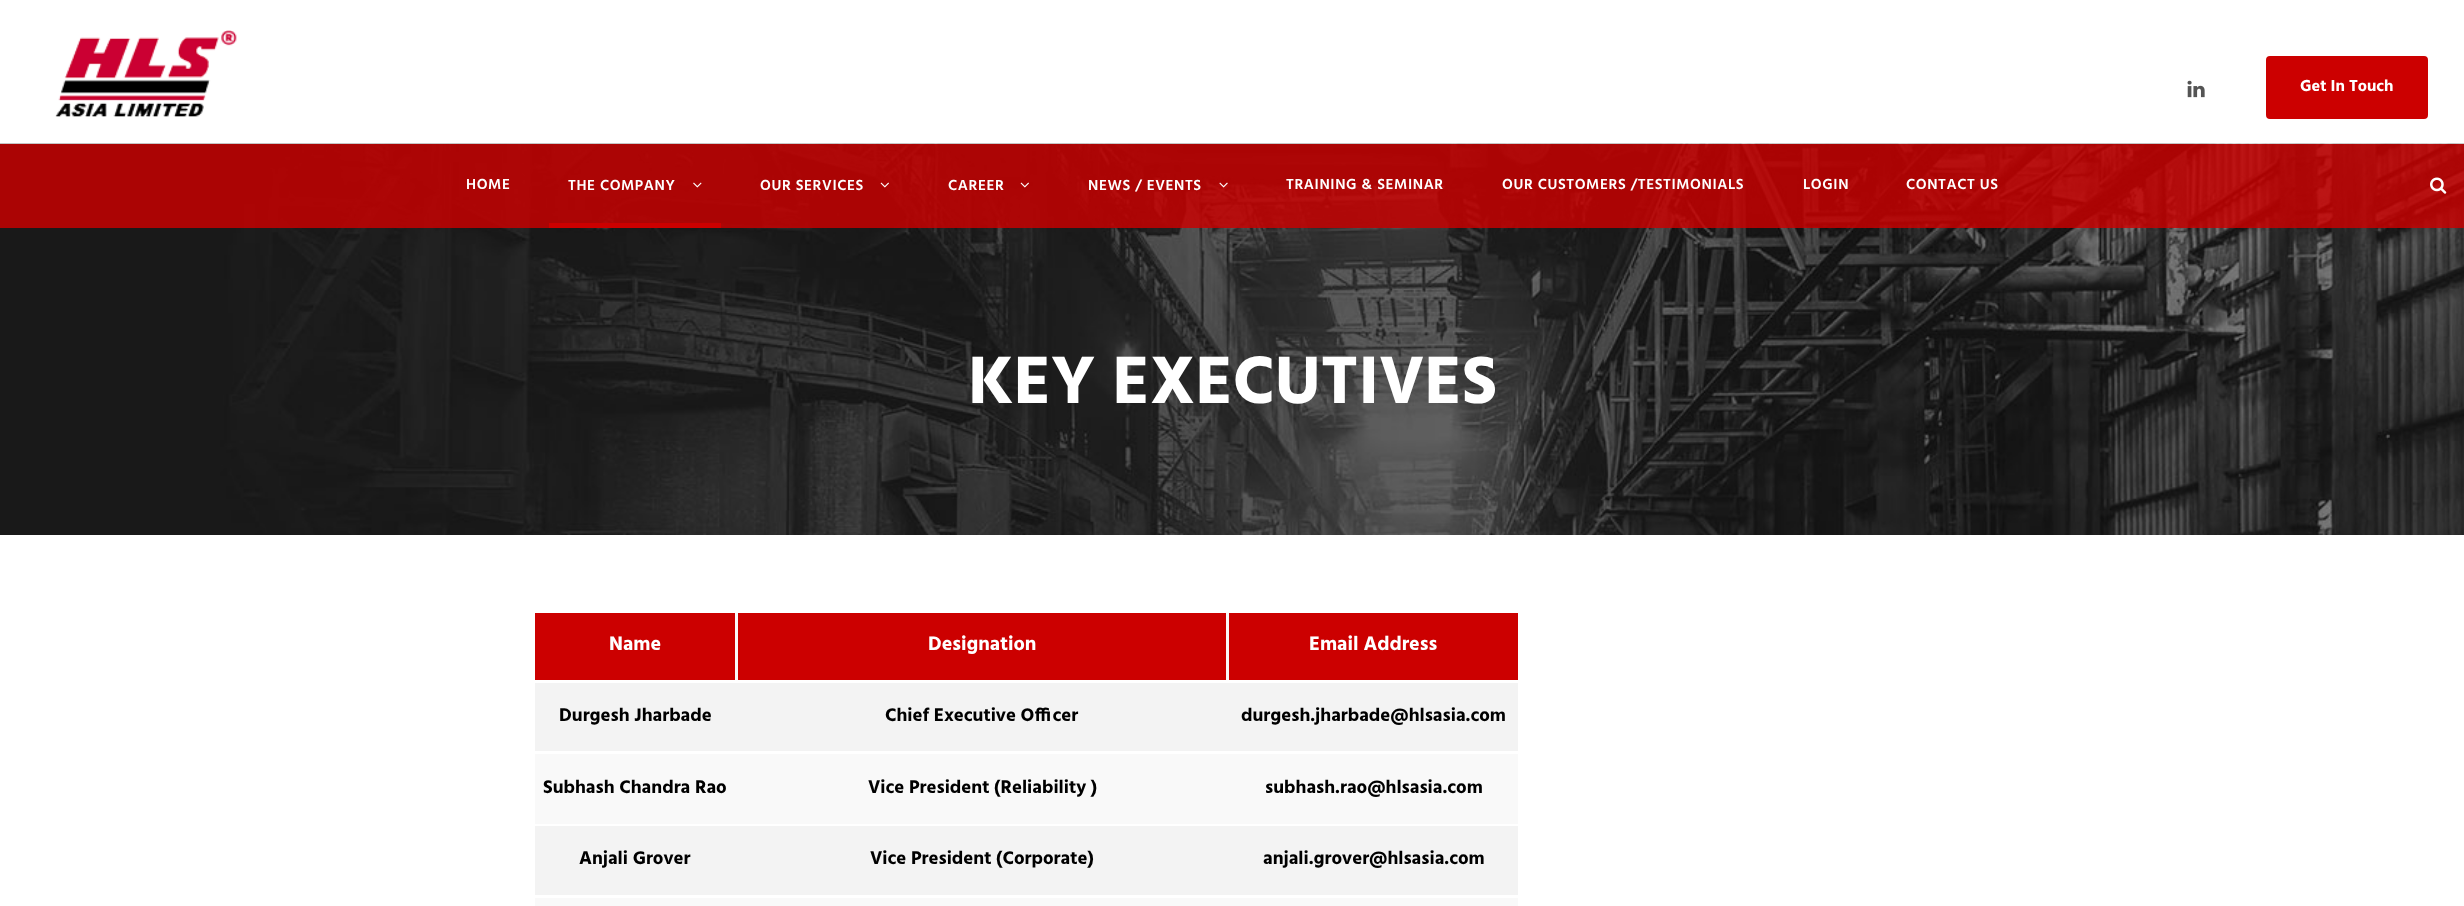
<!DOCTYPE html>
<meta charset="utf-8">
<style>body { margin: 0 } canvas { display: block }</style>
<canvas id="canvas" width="2464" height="906"></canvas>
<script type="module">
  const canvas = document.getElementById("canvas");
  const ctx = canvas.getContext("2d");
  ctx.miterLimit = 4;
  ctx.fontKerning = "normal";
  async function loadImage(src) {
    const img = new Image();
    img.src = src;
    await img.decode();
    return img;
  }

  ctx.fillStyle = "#ffffff";
  ctx.fillRect(0, 0, 2464, 906);
  ctx.drawImage(await loadImage("img1.png"), 55, 30, 182, 87);
  ctx.drawImage(await loadImage("img2.png"), 2187, 80, 18, 18);
  ctx.fillStyle = "#cc0000";
  ctx.beginPath();
  ctx.roundRect(2267.5, 57.5, 159, 60, 2.5);
  ctx.fill();
  ctx.strokeStyle = "#cc0000";
  ctx.lineWidth = 3;
  ctx.stroke();
  ctx.font = "bold 16.25px Hind";
  ctx.fillStyle = "#ffffff";
  ctx.fillText("Get In Touch", 2300, 91);
  ctx.drawImage(await loadImage("img8.png"), 0, 143, 2464, 392);
  ctx.fillStyle = "rgba(204, 0, 0, 0.82)";
  ctx.fillRect(0, 144, 2464, 84);
  ctx.letterSpacing = "0.6px";
  ctx.font = "600 15px Hind";
  ctx.fillStyle = "#ffffff";
  ctx.fillText("HOME", 466, 189);
  ctx.fillText("THE COMPANY", 568, 190);
  ctx.drawImage(await loadImage("img3.png"), 693, 182, 9, 6);
  ctx.fillText("OUR SERVICES", 760, 190);
  ctx.drawImage(await loadImage("img4.png"), 880, 182, 9, 6);
  ctx.fillText("CAREER", 948, 190);
  ctx.drawImage(await loadImage("img5.png"), 1020, 182, 9, 6);
  ctx.fillText("NEWS / EVENTS", 1088, 190);
  ctx.drawImage(await loadImage("img6.png"), 1219, 182, 9, 6);
  ctx.fillText("TRAINING & SEMINAR", 1286, 189);
  ctx.fillText("OUR CUSTOMERS /TESTIMONIALS", 1502, 189);
  ctx.fillText("LOGIN", 1803, 189);
  ctx.fillText("CONTACT US", 1906, 189);
  ctx.fillStyle = "#cc0000";
  ctx.fillRect(549, 223, 172, 5);
  ctx.drawImage(await loadImage("img7.png"), 2430, 177, 17, 17);
  ctx.letterSpacing = "0px";
  ctx.font = "bold 68.75px Hind";
  ctx.fillStyle = "#ffffff";
  ctx.fillText("KEY EXECUTIVES", 968, 403);
  ctx.fillStyle = "#f9f9f9";
  ctx.fillRect(735, 613, 494, 67);
  ctx.fillStyle = "#cc0000";
  ctx.fillRect(535, 613, 200, 67);
  ctx.font = "bold 20px Hind";
  ctx.fillStyle = "#ffffff";
  ctx.fillText("Name", 609, 650);
  ctx.fillStyle = "#cc0000";
  ctx.fillRect(738, 613, 488, 67);
  ctx.fillStyle = "#ffffff";
  ctx.fillText("Designation", 928, 650);
  ctx.fillStyle = "#cc0000";
  ctx.fillRect(1229, 613, 289, 67);
  ctx.fillStyle = "#ffffff";
  ctx.fillText("Email Address", 1309, 650);
  ctx.fillStyle = "#f3f3f3";
  ctx.fillRect(535, 683, 983, 68);
  ctx.font = "bold 18.75px Hind";
  ctx.fillStyle = "#000000";
  ctx.fillText("Durgesh Jharbade", 559, 721);
  ctx.fillText("Chief Executive Officer", 885, 721);
  ctx.fillText("durgesh.jharbade@hlsasia.com", 1241, 721);
  ctx.fillStyle = "#f9f9f9";
  ctx.fillRect(535, 754, 983, 70);
  ctx.fillStyle = "#000000";
  ctx.fillText("Subhash Chandra Rao", 543, 793);
  ctx.fillText("Vice President (Reliability )", 868, 793);
  ctx.fillText("subhash.rao@hlsasia.com", 1265, 793);
  ctx.fillStyle = "#f3f3f3";
  ctx.fillRect(535, 826, 983, 69);
  ctx.fillStyle = "#000000";
  ctx.fillText("Anjali Grover", 579, 864);
  ctx.fillText("Vice President (Corporate)", 870, 864);
  ctx.fillText("anjali.grover@hlsasia.com", 1263, 864);
  ctx.fillStyle = "#f9f9f9";
  ctx.fillRect(535, 898, 983, 8);
</script>
